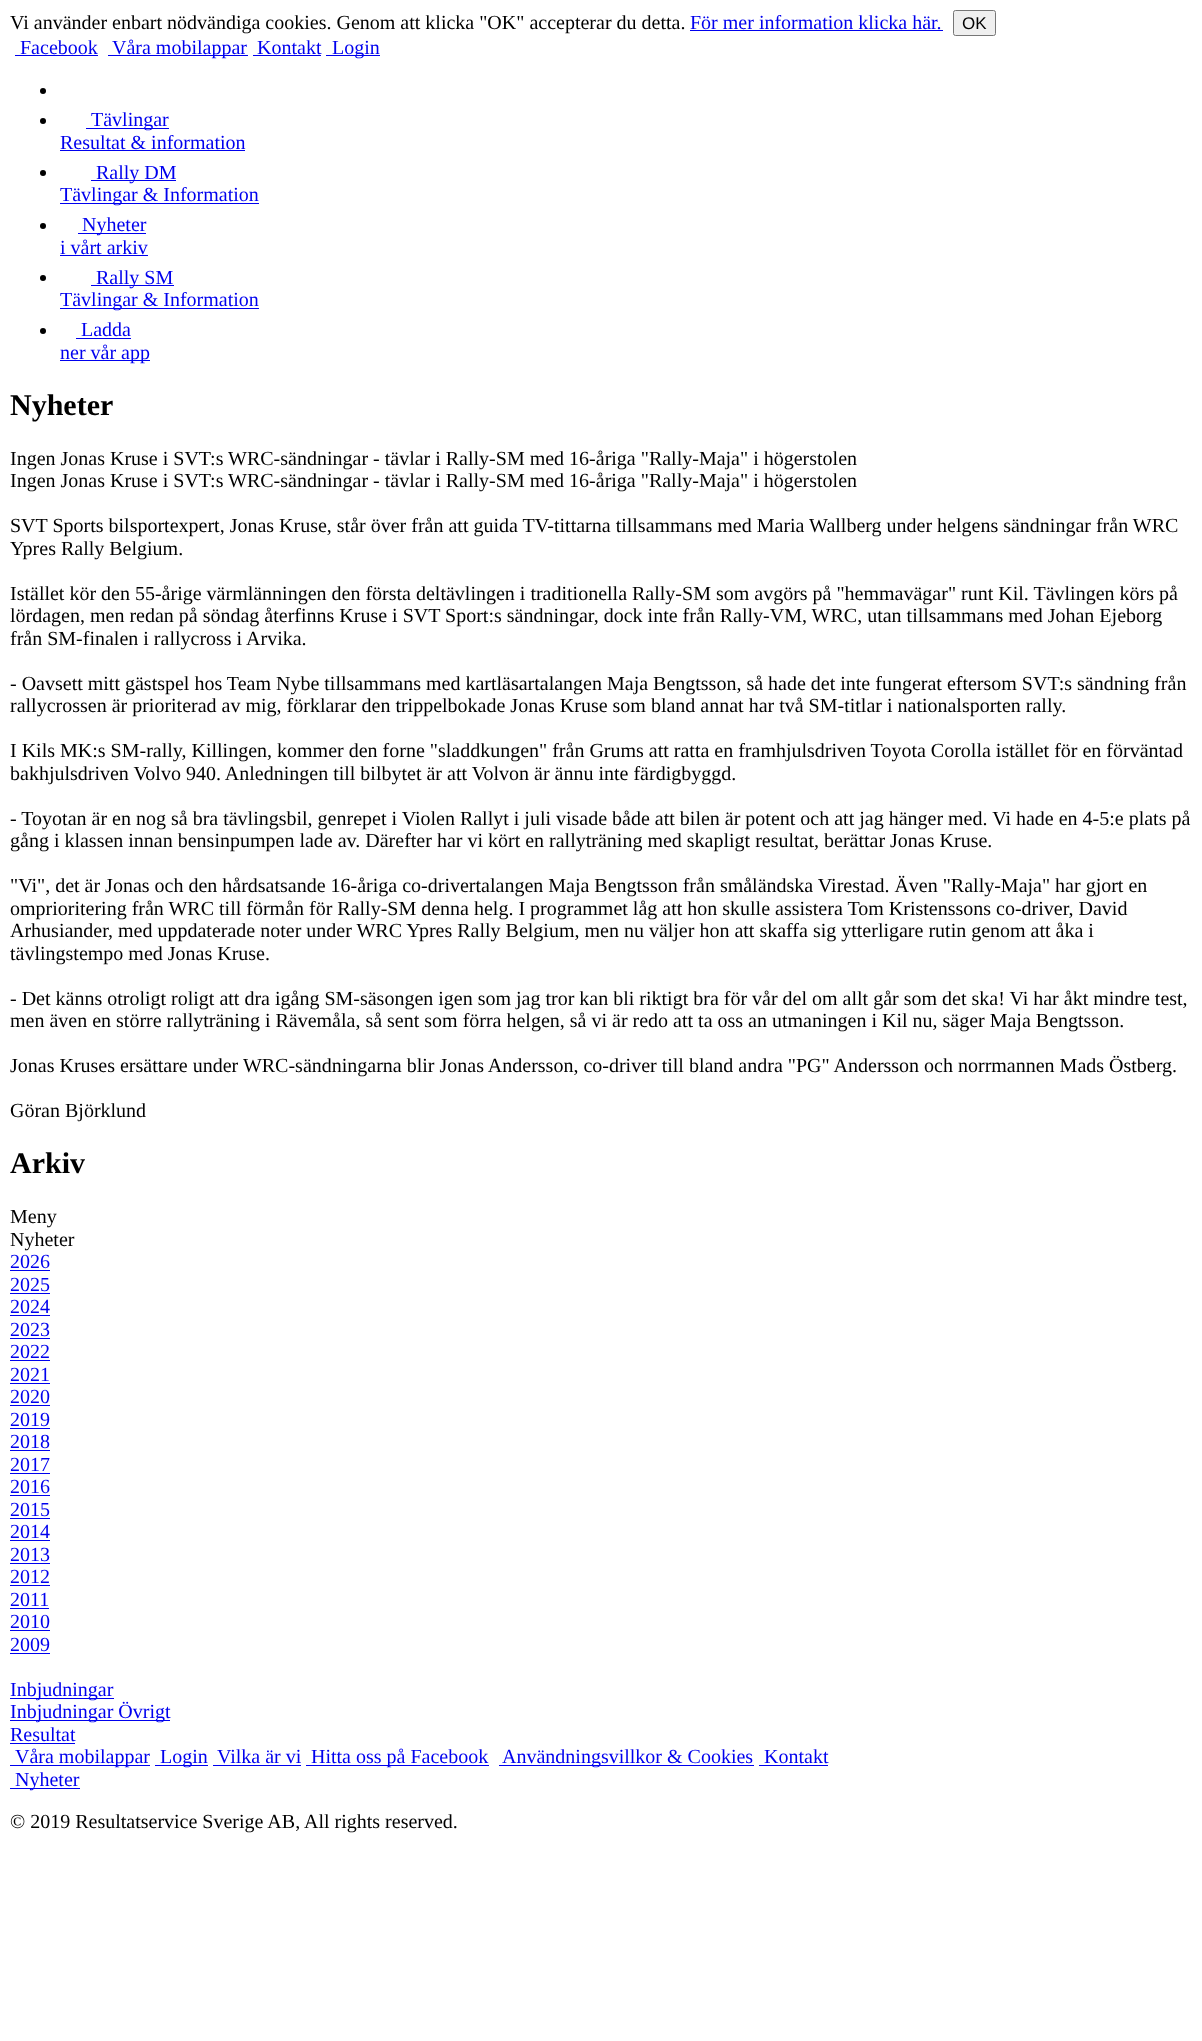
<!DOCTYPE html>
<meta charset="utf-8">
<style>body { margin: 0 } canvas { display: block }</style>
<canvas id="canvas" width="1202" height="2041"></canvas>
<script type="module">
  const canvas = document.getElementById("canvas");
  const ctx = canvas.getContext("2d");
  ctx.miterLimit = 4;
  ctx.fontKerning = "normal";

  ctx.fillStyle = "#ffffff";
  ctx.fillRect(0, 0, 1202, 2041);
  ctx.font = "20px Liberation Serif";
  ctx.fillStyle = "#000000";
  ctx.fillText("Vi använder enbart nödvändiga cookies. Genom att klicka \"OK\" accepterar du detta.", 10, 29);
  ctx.fillStyle = "#0000ee";
  ctx.fillText("För mer information klicka här.", 690, 29);
  ctx.fillRect(690, 30, 253, 1);
  ctx.fillStyle = "#efefef";
  ctx.beginPath();
  ctx.roundRect(953.5, 10.5, 42, 25, 2);
  ctx.fill();
  ctx.strokeStyle = "#767676";
  ctx.stroke();
  ctx.font = "17px Liberation Sans";
  ctx.fillStyle = "#000000";
  ctx.fillText("OK", 962, 29);
  ctx.font = "20px Liberation Serif";
  ctx.fillStyle = "#0000ee";
  ctx.fillText("Facebook", 20, 54);
  ctx.fillRect(15, 55, 83, 1);
  ctx.fillRect(108, 55, 140, 1);
  ctx.fillText("Våra mobilappar", 112, 54);
  ctx.fillText("Kontakt", 257, 54);
  ctx.fillRect(253, 55, 68, 1);
  ctx.fillRect(326, 55, 54, 1);
  ctx.fillText("Login", 332, 54);
  ctx.fillStyle = "#000000";
  ctx.beginPath();
  ctx.arc(43, 91, 3, 0, Math.PI * 2);
  ctx.fill();
  ctx.beginPath();
  ctx.arc(43, 121, 3, 0, Math.PI * 2);
  ctx.fill();
  ctx.fillStyle = "#0000ee";
  ctx.fillRect(86, 128, 83, 1);
  ctx.fillText("Tävlingar", 91, 126);
  ctx.fillText("Resultat & information", 60, 149);
  ctx.fillRect(60, 150, 185, 1);
  ctx.fillStyle = "#000000";
  ctx.beginPath();
  ctx.arc(43, 173, 3, 0, Math.PI * 2);
  ctx.fill();
  ctx.fillStyle = "#0000ee";
  ctx.fillRect(91, 180, 85, 1);
  ctx.fillText("Rally DM", 96, 179);
  ctx.fillRect(60, 203, 199, 1);
  ctx.fillText("Tävlingar & Information", 60, 201);
  ctx.fillStyle = "#000000";
  ctx.beginPath();
  ctx.arc(43, 226, 3, 0, Math.PI * 2);
  ctx.fill();
  ctx.fillStyle = "#0000ee";
  ctx.fillRect(78, 233, 68, 1);
  ctx.fillText("Nyheter", 82, 231);
  ctx.fillText("i vårt arkiv", 60, 254);
  ctx.fillRect(60, 255, 88, 1);
  ctx.fillStyle = "#000000";
  ctx.beginPath();
  ctx.arc(43, 278, 3, 0, Math.PI * 2);
  ctx.fill();
  ctx.fillStyle = "#0000ee";
  ctx.fillRect(91, 285, 83, 1);
  ctx.fillText("Rally SM", 96, 284);
  ctx.fillRect(60, 308, 199, 1);
  ctx.fillText("Tävlingar & Information", 60, 306);
  ctx.fillStyle = "#000000";
  ctx.beginPath();
  ctx.arc(43, 331, 3, 0, Math.PI * 2);
  ctx.fill();
  ctx.fillStyle = "#0000ee";
  ctx.fillText("Ladda", 81, 336);
  ctx.fillRect(76, 338, 55, 1);
  ctx.fillRect(60, 360, 90, 1);
  ctx.fillText("ner vår app", 60, 359);
  ctx.font = "bold 30px Liberation Serif";
  ctx.fillStyle = "#000000";
  ctx.fillText("Nyheter", 10, 415);
  ctx.font = "20px Liberation Serif";
  ctx.fillText("Ingen Jonas Kruse i SVT:s WRC-sändningar - tävlar i Rally-SM med 16-åriga \"Rally-Maja\" i högerstolen", 10, 465);
  ctx.fillText("Ingen Jonas Kruse i SVT:s WRC-sändningar - tävlar i Rally-SM med 16-åriga \"Rally-Maja\" i högerstolen", 10, 487);
  ctx.fillText("SVT Sports bilsportexpert, Jonas Kruse, står över från att guida TV-tittarna tillsammans med Maria Wallberg under helgens sändningar från WRC", 10, 532);
  ctx.fillText("Ypres Rally Belgium.", 10, 555);
  ctx.fillText("Istället kör den 55-årige värmlänningen den första deltävlingen i traditionella Rally-SM som avgörs på \"hemmavägar\" runt Kil. Tävlingen körs på", 10, 600);
  ctx.fillText("lördagen, men redan på söndag återfinns Kruse i SVT Sport:s sändningar, dock inte från Rally-VM, WRC, utan tillsammans med Johan Ejeborg", 10, 622);
  ctx.fillText("från SM-finalen i rallycross i Arvika.", 10, 645);
  ctx.fillText("- Oavsett mitt gästspel hos Team Nybe tillsammans med kartläsartalangen Maja Bengtsson, så hade det inte fungerat eftersom SVT:s sändning från", 10, 690);
  ctx.fillText("rallycrossen är prioriterad av mig, förklarar den trippelbokade Jonas Kruse som bland annat har två SM-titlar i nationalsporten rally.", 10, 712);
  ctx.fillText("I Kils MK:s SM-rally, Killingen, kommer den forne \"sladdkungen\" från Grums att ratta en framhjulsdriven Toyota Corolla istället för en förväntad", 10, 757);
  ctx.fillText("bakhjulsdriven Volvo 940. Anledningen till bilbytet är att Volvon är ännu inte färdigbyggd.", 10, 780);
  ctx.fillText("- Toyotan är en nog så bra tävlingsbil, genrepet i Violen Rallyt i juli visade både att bilen är potent och att jag hänger med. Vi hade en 4-5:e plats på", 10, 825);
  ctx.fillText("gång i klassen innan bensinpumpen lade av. Därefter har vi kört en rallyträning med skapligt resultat, berättar Jonas Kruse.", 10, 847);
  ctx.fillText("\"Vi\", det är Jonas och den hårdsatsande 16-åriga co-drivertalangen Maja Bengtsson från småländska Virestad. Även \"Rally-Maja\" har gjort en", 10, 892);
  ctx.fillText("omprioritering från WRC till förmån för Rally-SM denna helg. I programmet låg att hon skulle assistera Tom Kristenssons co-driver, David", 10, 915);
  ctx.fillText("Arhusiander, med uppdaterade noter under WRC Ypres Rally Belgium, men nu väljer hon att skaffa sig ytterligare rutin genom att åka i", 10, 937);
  ctx.fillText("tävlingstempo med Jonas Kruse.", 10, 960);
  ctx.fillText("- Det känns otroligt roligt att dra igång SM-säsongen igen som jag tror kan bli riktigt bra för vår del om allt går som det ska! Vi har åkt mindre test,", 10, 1005);
  ctx.fillText("men även en större rallyträning i Rävemåla, så sent som förra helgen, så vi är redo att ta oss an utmaningen i Kil nu, säger Maja Bengtsson.", 10, 1027);
  ctx.fillText("Jonas Kruses ersättare under WRC-sändningarna blir Jonas Andersson, co-driver till bland andra \"PG\" Andersson och norrmannen Mads Östberg.", 10, 1072);
  ctx.fillText("Göran Björklund", 10, 1117);
  ctx.font = "bold 30px Liberation Serif";
  ctx.fillText("Arkiv", 10, 1173);
  ctx.font = "20px Liberation Serif";
  ctx.fillText("Meny", 10, 1223);
  ctx.fillText("Nyheter", 10, 1246);
  ctx.fillStyle = "#0000ee";
  ctx.fillText("2026", 10, 1268);
  ctx.fillRect(10, 1270, 40, 1);
  ctx.fillText("2025", 10, 1291);
  ctx.fillRect(10, 1293, 40, 1);
  ctx.fillText("2024", 10, 1313);
  ctx.fillRect(10, 1315, 40, 1);
  ctx.fillText("2023", 10, 1336);
  ctx.fillRect(10, 1338, 40, 1);
  ctx.fillText("2022", 10, 1358);
  ctx.fillRect(10, 1360, 40, 1);
  ctx.fillText("2021", 10, 1381);
  ctx.fillRect(10, 1383, 40, 1);
  ctx.fillText("2020", 10, 1403);
  ctx.fillRect(10, 1405, 40, 1);
  ctx.fillText("2019", 10, 1426);
  ctx.fillRect(10, 1428, 40, 1);
  ctx.fillText("2018", 10, 1448);
  ctx.fillRect(10, 1450, 40, 1);
  ctx.fillText("2017", 10, 1471);
  ctx.fillRect(10, 1473, 40, 1);
  ctx.fillText("2016", 10, 1493);
  ctx.fillRect(10, 1495, 40, 1);
  ctx.fillText("2015", 10, 1516);
  ctx.fillRect(10, 1518, 40, 1);
  ctx.fillText("2014", 10, 1538);
  ctx.fillRect(10, 1540, 40, 1);
  ctx.fillText("2013", 10, 1561);
  ctx.fillRect(10, 1563, 40, 1);
  ctx.fillText("2012", 10, 1583);
  ctx.fillRect(10, 1585, 40, 1);
  ctx.fillText("2011", 10, 1606);
  ctx.fillRect(10, 1608, 39, 1);
  ctx.fillText("2010", 10, 1628);
  ctx.fillRect(10, 1630, 40, 1);
  ctx.fillText("2009", 10, 1651);
  ctx.fillRect(10, 1653, 40, 1);
  ctx.fillRect(10, 1698, 104, 1);
  ctx.fillText("Inbjudningar", 10, 1696);
  ctx.fillRect(10, 1720, 160, 1);
  ctx.fillText("Inbjudningar Övrigt", 10, 1718);
  ctx.fillText("Resultat", 10, 1741);
  ctx.fillRect(10, 1743, 65, 1);
  ctx.fillRect(10, 1765, 140, 1);
  ctx.fillText("Våra mobilappar", 15, 1763);
  ctx.fillRect(155, 1765, 53, 1);
  ctx.fillText("Login", 160, 1763);
  ctx.fillText("Vilka är vi", 217, 1763);
  ctx.fillRect(213, 1765, 88, 1);
  ctx.fillRect(306, 1765, 183, 1);
  ctx.fillText("Hitta oss på Facebook", 311, 1763);
  ctx.fillRect(499, 1765, 255, 1);
  ctx.fillText("Användningsvillkor & Cookies", 502, 1763);
  ctx.fillText("Kontakt", 764, 1763);
  ctx.fillRect(759, 1765, 69, 1);
  ctx.fillRect(10, 1788, 70, 1);
  ctx.fillText("Nyheter", 15, 1786);
  ctx.fillStyle = "#000000";
  ctx.fillText("© 2019 Resultatservice Sverige AB,", 10, 1828);
  ctx.fillText("All rights reserved.", 304, 1828);
</script>
